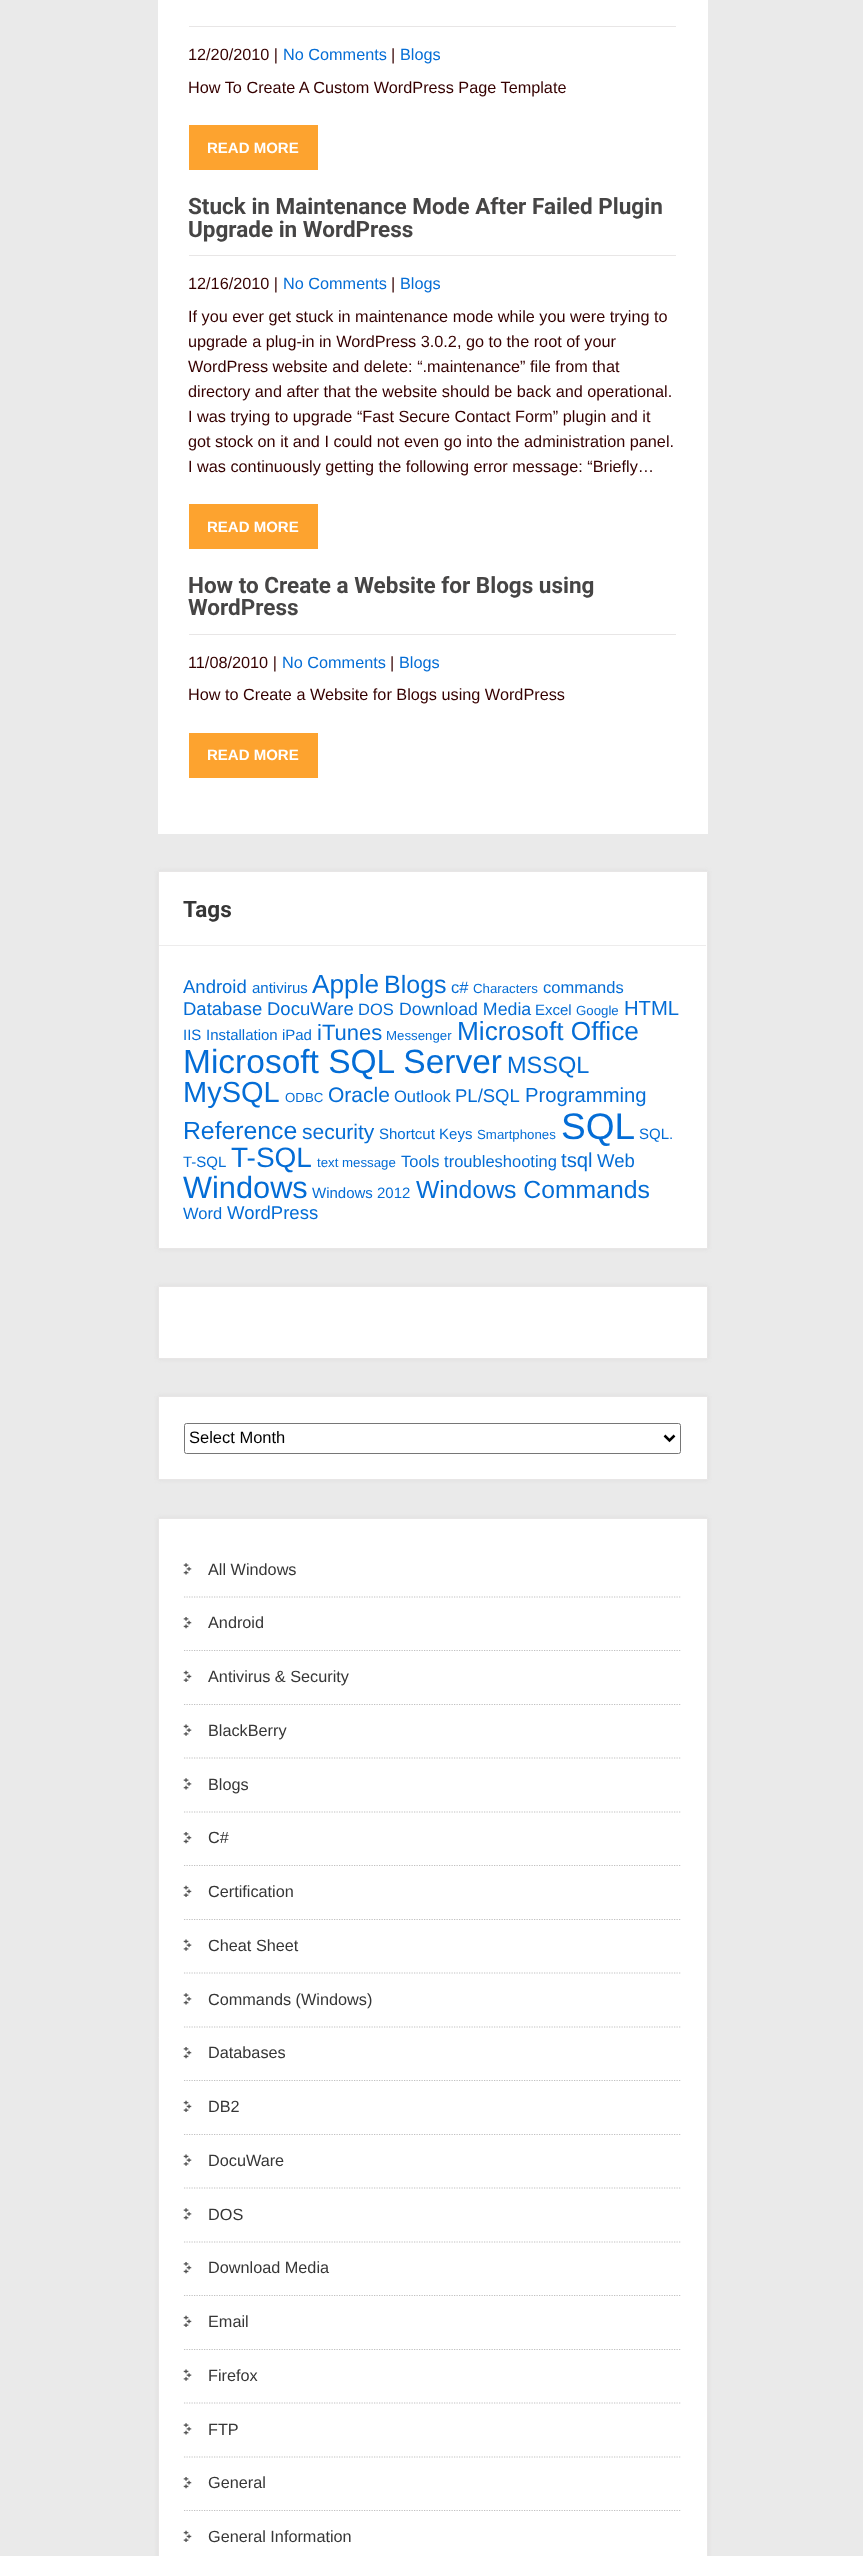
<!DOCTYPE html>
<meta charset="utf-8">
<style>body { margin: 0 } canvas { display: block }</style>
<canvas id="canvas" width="863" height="2556"></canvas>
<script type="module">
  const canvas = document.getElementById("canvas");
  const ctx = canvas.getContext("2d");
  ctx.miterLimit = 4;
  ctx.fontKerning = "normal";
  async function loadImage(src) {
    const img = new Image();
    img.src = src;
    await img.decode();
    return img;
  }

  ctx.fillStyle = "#eaeaea";
  ctx.fillRect(0, 0, 863, 2556);
  ctx.fillStyle = "#ffffff";
  ctx.fillRect(158, 0, 550, 834);
  ctx.fillStyle = "#e8e6e6";
  ctx.fillRect(189, 26, 487, 1);
  ctx.font = "16.25px Arimo";
  ctx.fillStyle = "#350000";
  ctx.fillText("12/20/2010 |", 188, 60);
  ctx.fillStyle = "#046dd6";
  ctx.fillText("No Comments", 283, 60);
  ctx.fillStyle = "#350000";
  ctx.fillText("|", 391, 60);
  ctx.fillStyle = "#046dd6";
  ctx.fillText("Blogs", 400, 60);
  ctx.fillStyle = "#350000";
  ctx.fillText("How To Create A Custom WordPress Page Template", 188, 93);
  ctx.fillStyle = "#fda32f";
  ctx.fillRect(189, 125, 129, 45);
  ctx.font = "bold 15px Arimo";
  ctx.fillStyle = "#ffffff";
  ctx.fillText("READ MORE", 207, 153);
  ctx.fillStyle = "#e8e6e6";
  ctx.fillRect(189, 255, 487, 1);
  ctx.font = "bold 22.5px Roboto";
  ctx.fillStyle = "#464545";
  ctx.fillText("Stuck in Maintenance Mode After Failed Plugin", 188, 214);
  ctx.fillText("Upgrade in WordPress", 188, 237);
  ctx.font = "16.25px Arimo";
  ctx.fillStyle = "#350000";
  ctx.fillText("12/16/2010 |", 188, 289);
  ctx.fillStyle = "#046dd6";
  ctx.fillText("No Comments", 283, 289);
  ctx.fillStyle = "#350000";
  ctx.fillText("|", 391, 289);
  ctx.fillStyle = "#046dd6";
  ctx.fillText("Blogs", 400, 289);
  ctx.fillStyle = "#350000";
  ctx.fillText("If you ever get stuck in maintenance mode while you were trying to", 188, 322);
  ctx.fillText("upgrade a plug-in in WordPress 3.0.2, go to the root of your", 188, 347);
  ctx.fillText("WordPress website and delete: “.maintenance” file from that", 188, 372);
  ctx.fillText("directory and after that the website should be back and operational.", 188, 397);
  ctx.fillText("I was trying to upgrade “Fast Secure Contact Form” plugin and it", 188, 422);
  ctx.fillText("got stock on it and I could not even go into the administration panel.", 188, 447);
  ctx.fillText("I was continuously getting the following error message: “Briefly…", 188, 472);
  ctx.fillStyle = "#fda32f";
  ctx.fillRect(189, 504, 129, 45);
  ctx.font = "bold 15px Arimo";
  ctx.fillStyle = "#ffffff";
  ctx.fillText("READ MORE", 207, 532);
  ctx.fillStyle = "#e8e6e6";
  ctx.fillRect(189, 634, 487, 1);
  ctx.font = "bold 22.5px Roboto";
  ctx.fillStyle = "#464545";
  ctx.fillText("How to Create a Website for Blogs using", 188, 593);
  ctx.fillText("WordPress", 188, 615);
  ctx.font = "16.25px Arimo";
  ctx.fillStyle = "#350000";
  ctx.fillText("11/08/2010 |", 188, 668);
  ctx.fillStyle = "#046dd6";
  ctx.fillText("No Comments", 282, 668);
  ctx.fillStyle = "#350000";
  ctx.fillText("|", 390, 668);
  ctx.fillStyle = "#046dd6";
  ctx.fillText("Blogs", 399, 668);
  ctx.fillStyle = "#350000";
  ctx.fillText("How to Create a Website for Blogs using WordPress", 188, 700);
  ctx.fillStyle = "#fda32f";
  ctx.fillRect(189, 733, 129, 45);
  ctx.font = "bold 15px Arimo";
  ctx.fillStyle = "#ffffff";
  ctx.fillText("READ MORE", 207, 760);
  ctx.fillStyle = "#dddcdc";
  ctx.filter = "blur(2px)";
  ctx.beginPath();
  ctx.rect(158, 871, 550, 378);
  ctx.fill();
  ctx.filter = "none";
  ctx.fillStyle = "#ffffff";
  ctx.beginPath();
  ctx.rect(158.5, 871.5, 549, 377);
  ctx.fill();
  ctx.strokeStyle = "#e8e6e6";
  ctx.stroke();
  ctx.fillStyle = "#edecec";
  ctx.fillRect(159, 945, 547, 1);
  ctx.font = "bold 22.5px Roboto";
  ctx.fillStyle = "#363636";
  ctx.fillText("Tags", 183, 917);
  ctx.font = "18.5px Arimo";
  ctx.fillStyle = "#046dd6";
  ctx.fillText("Android", 183, 993);
  ctx.font = "15px Arimo";
  ctx.fillText("antivirus", 252, 993);
  ctx.font = "26.25px Arimo";
  ctx.fillText("Apple", 312, 993);
  ctx.font = "25px Arimo";
  ctx.fillText("Blogs", 384, 993);
  ctx.font = "16.5px Arimo";
  ctx.fillText("c#", 451, 993);
  ctx.font = "13.25px Arimo";
  ctx.fillText("Characters", 473, 993);
  ctx.font = "16.5px Arimo";
  ctx.fillText("commands", 543, 993);
  ctx.font = "18.5px Arimo";
  ctx.fillText("Database", 183, 1015);
  ctx.fillText("DocuWare", 267, 1015);
  ctx.font = "16.5px Arimo";
  ctx.fillText("DOS", 358, 1015);
  ctx.font = "17.75px Arimo";
  ctx.fillText("Download Media", 399, 1015);
  ctx.font = "15px Arimo";
  ctx.fillText("Excel", 535, 1015);
  ctx.font = "13.25px Arimo";
  ctx.fillText("Google", 576, 1015);
  ctx.font = "20.25px Arimo";
  ctx.fillText("HTML", 624, 1015);
  ctx.font = "15px Arimo";
  ctx.fillText("IIS", 183, 1040);
  ctx.fillText("Installation iPad", 206, 1040);
  ctx.font = "22px Arimo";
  ctx.fillText("iTunes", 317, 1040);
  ctx.font = "13.25px Arimo";
  ctx.fillText("Messenger", 386, 1040);
  ctx.font = "26.25px Arimo";
  ctx.fillText("Microsoft Office", 457, 1040);
  ctx.font = "33.5px Arimo";
  ctx.fillText("Microsoft SQL Server", 183, 1073);
  ctx.font = "23.5px Arimo";
  ctx.fillText("MSSQL", 507, 1073);
  ctx.font = "29px Arimo";
  ctx.fillText("MySQL", 183, 1102);
  ctx.font = "13.25px Arimo";
  ctx.fillText("ODBC", 285, 1102);
  ctx.font = "21px Arimo";
  ctx.fillText("Oracle", 328, 1102);
  ctx.font = "16.5px Arimo";
  ctx.fillText("Outlook", 394, 1102);
  ctx.font = "18.5px Arimo";
  ctx.fillText("PL/SQL", 455, 1102);
  ctx.font = "20.25px Arimo";
  ctx.fillText("Programming", 525, 1102);
  ctx.font = "24.75px Arimo";
  ctx.fillText("Reference", 183, 1139);
  ctx.font = "21px Arimo";
  ctx.fillText("security", 302, 1139);
  ctx.font = "15px Arimo";
  ctx.fillText("Shortcut Keys", 379, 1139);
  ctx.font = "13.25px Arimo";
  ctx.fillText("Smartphones", 477, 1139);
  ctx.font = "37px Arimo";
  ctx.fillText("SQL", 561, 1139);
  ctx.font = "15px Arimo";
  ctx.fillText("SQL.", 639, 1139);
  ctx.fillText("T-SQL", 183, 1167);
  ctx.font = "28px Arimo";
  ctx.fillText("T-SQL", 231, 1167);
  ctx.font = "13.25px Arimo";
  ctx.fillText("text message", 317, 1167);
  ctx.font = "16.5px Arimo";
  ctx.fillText("Tools troubleshooting", 401, 1167);
  ctx.font = "20.25px Arimo";
  ctx.fillText("tsql", 561, 1167);
  ctx.font = "18.5px Arimo";
  ctx.fillText("Web", 597, 1167);
  ctx.font = "30.75px Arimo";
  ctx.fillText("Windows", 183, 1198);
  ctx.font = "15px Arimo";
  ctx.fillText("Windows 2012", 312, 1198);
  ctx.font = "24.75px Arimo";
  ctx.fillText("Windows Commands", 416, 1198);
  ctx.font = "16.5px Arimo";
  ctx.fillText("Word", 183, 1219);
  ctx.font = "18.5px Arimo";
  ctx.fillText("WordPress", 227, 1219);
  ctx.fillStyle = "#dddcdc";
  ctx.filter = "blur(2px)";
  ctx.beginPath();
  ctx.rect(158, 1286, 550, 73);
  ctx.fill();
  ctx.filter = "none";
  ctx.fillStyle = "#ffffff";
  ctx.beginPath();
  ctx.rect(158.5, 1286.5, 549, 72);
  ctx.fill();
  ctx.stroke();
  ctx.fillStyle = "#dddcdc";
  ctx.filter = "blur(2px)";
  ctx.beginPath();
  ctx.rect(158, 1396, 550, 84);
  ctx.fill();
  ctx.filter = "none";
  ctx.fillStyle = "#ffffff";
  ctx.beginPath();
  ctx.rect(158.5, 1396.5, 549, 83);
  ctx.fill();
  ctx.stroke();
  ctx.beginPath();
  ctx.roundRect(184.5, 1423.5, 496, 30, 2);
  ctx.strokeStyle = "#767676";
  ctx.stroke();
  ctx.beginPath();
  ctx.moveTo(664.5, 1435.5);
  ctx.lineTo(669.5, 1440.5);
  ctx.lineTo(674.5, 1435.5);
  ctx.strokeStyle = "#000000";
  ctx.lineWidth = 2.5;
  ctx.stroke();
  ctx.font = "16.5px Liberation Sans";
  ctx.fillStyle = "#000000";
  ctx.fillText("Select Month", 189, 1443);
  ctx.fillStyle = "#dddcdc";
  ctx.filter = "blur(2px)";
  ctx.beginPath();
  ctx.rect(158, 1518, 550, 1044);
  ctx.fill();
  ctx.filter = "none";
  ctx.fillStyle = "#ffffff";
  ctx.beginPath();
  ctx.rect(158.5, 1518.5, 549, 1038);
  ctx.fill();
  ctx.strokeStyle = "#e8e6e6";
  ctx.lineWidth = 1;
  ctx.stroke();
  ctx.drawImage(await loadImage("img1.png"), 183, 1563, 9, 12);
  ctx.beginPath();
  ctx.moveTo(184, 1597);
  ctx.lineTo(681, 1597);
  ctx.strokeStyle = "#c1c1c1";
  ctx.lineWidth = 1.2;
  ctx.setLineDash([1.25, 1.25]);
  ctx.stroke();
  ctx.font = "16.25px Arimo";
  ctx.fillStyle = "#363636";
  ctx.fillText("All Windows", 208, 1575);
  ctx.drawImage(await loadImage("img2.png"), 183, 1617, 9, 12);
  ctx.beginPath();
  ctx.moveTo(184, 1650.5);
  ctx.lineTo(681, 1650.5);
  ctx.stroke();
  ctx.fillText("Android", 208, 1628);
  ctx.drawImage(await loadImage("img3.png"), 183, 1670, 9, 12);
  ctx.beginPath();
  ctx.moveTo(184, 1704.5);
  ctx.lineTo(681, 1704.5);
  ctx.stroke();
  ctx.fillText("Antivirus & Security", 208, 1682);
  ctx.drawImage(await loadImage("img4.png"), 183, 1724, 9, 12);
  ctx.beginPath();
  ctx.moveTo(184, 1758);
  ctx.lineTo(681, 1758);
  ctx.stroke();
  ctx.fillText("BlackBerry", 208, 1736);
  ctx.drawImage(await loadImage("img1.png"), 183, 1778, 9, 12);
  ctx.beginPath();
  ctx.moveTo(184, 1812);
  ctx.lineTo(681, 1812);
  ctx.stroke();
  ctx.fillText("Blogs", 208, 1790);
  ctx.drawImage(await loadImage("img2.png"), 183, 1832, 9, 12);
  ctx.beginPath();
  ctx.moveTo(184, 1865.5);
  ctx.lineTo(681, 1865.5);
  ctx.stroke();
  ctx.fillText("C#", 208, 1843);
  ctx.drawImage(await loadImage("img5.png"), 183, 1885, 9, 12);
  ctx.beginPath();
  ctx.moveTo(184, 1919.5);
  ctx.lineTo(681, 1919.5);
  ctx.stroke();
  ctx.fillText("Certification", 208, 1897);
  ctx.drawImage(await loadImage("img4.png"), 183, 1939, 9, 12);
  ctx.beginPath();
  ctx.moveTo(184, 1973);
  ctx.lineTo(681, 1973);
  ctx.stroke();
  ctx.fillText("Cheat Sheet", 208, 1951);
  ctx.drawImage(await loadImage("img1.png"), 183, 1993, 9, 12);
  ctx.beginPath();
  ctx.moveTo(184, 2027);
  ctx.lineTo(681, 2027);
  ctx.stroke();
  ctx.fillText("Commands (Windows)", 208, 2005);
  ctx.drawImage(await loadImage("img2.png"), 183, 2047, 9, 12);
  ctx.beginPath();
  ctx.moveTo(184, 2080.5);
  ctx.lineTo(681, 2080.5);
  ctx.stroke();
  ctx.fillText("Databases", 208, 2058);
  ctx.drawImage(await loadImage("img5.png"), 183, 2100, 9, 12);
  ctx.beginPath();
  ctx.moveTo(184, 2134.5);
  ctx.lineTo(681, 2134.5);
  ctx.stroke();
  ctx.fillText("DB2", 208, 2112);
  ctx.drawImage(await loadImage("img4.png"), 183, 2154, 9, 12);
  ctx.beginPath();
  ctx.moveTo(184, 2188);
  ctx.lineTo(681, 2188);
  ctx.stroke();
  ctx.fillText("DocuWare", 208, 2166);
  ctx.drawImage(await loadImage("img1.png"), 183, 2208, 9, 12);
  ctx.beginPath();
  ctx.moveTo(184, 2242);
  ctx.lineTo(681, 2242);
  ctx.stroke();
  ctx.fillText("DOS", 208, 2220);
  ctx.drawImage(await loadImage("img2.png"), 183, 2262, 9, 12);
  ctx.beginPath();
  ctx.moveTo(184, 2295.5);
  ctx.lineTo(681, 2295.5);
  ctx.stroke();
  ctx.fillText("Download Media", 208, 2273);
  ctx.drawImage(await loadImage("img5.png"), 183, 2315, 9, 12);
  ctx.beginPath();
  ctx.moveTo(184, 2349.5);
  ctx.lineTo(681, 2349.5);
  ctx.stroke();
  ctx.fillText("Email", 208, 2327);
  ctx.drawImage(await loadImage("img4.png"), 183, 2369, 9, 12);
  ctx.beginPath();
  ctx.moveTo(184, 2403);
  ctx.lineTo(681, 2403);
  ctx.stroke();
  ctx.fillText("Firefox", 208, 2381);
  ctx.drawImage(await loadImage("img1.png"), 183, 2423, 9, 12);
  ctx.beginPath();
  ctx.moveTo(184, 2457);
  ctx.lineTo(681, 2457);
  ctx.stroke();
  ctx.fillText("FTP", 208, 2435);
  ctx.drawImage(await loadImage("img2.png"), 183, 2477, 9, 12);
  ctx.beginPath();
  ctx.moveTo(184, 2510.5);
  ctx.lineTo(681, 2510.5);
  ctx.stroke();
  ctx.fillText("General", 208, 2488);
  ctx.drawImage(await loadImage("img5.png"), 183, 2530, 9, 12);
  ctx.fillText("General Information", 208, 2542);
</script>
